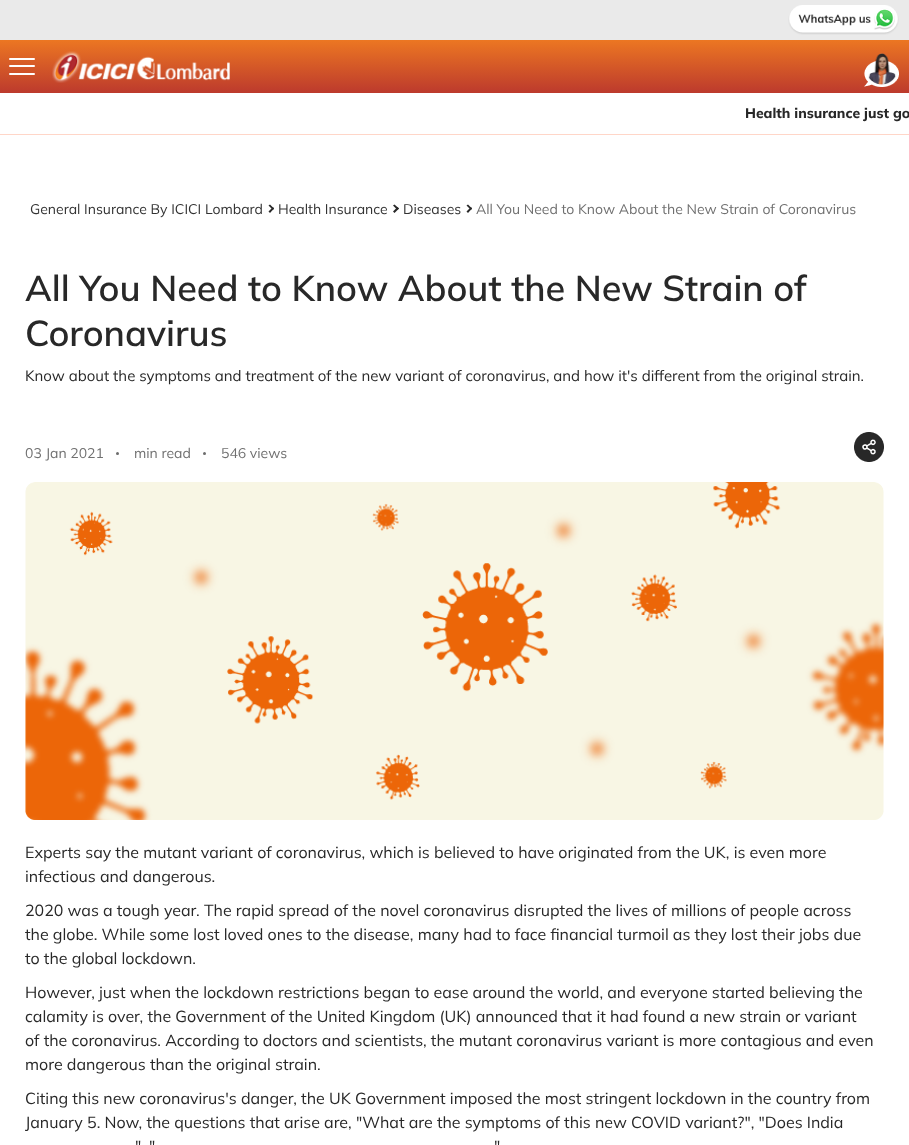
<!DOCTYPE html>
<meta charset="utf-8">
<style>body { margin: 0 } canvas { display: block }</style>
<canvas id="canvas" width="909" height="1145"></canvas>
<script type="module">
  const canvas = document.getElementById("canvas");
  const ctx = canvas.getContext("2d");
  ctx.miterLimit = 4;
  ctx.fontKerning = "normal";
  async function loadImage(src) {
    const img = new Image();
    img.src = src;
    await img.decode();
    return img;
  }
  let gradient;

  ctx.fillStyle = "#ffffff";
  ctx.fillRect(0, 0, 909, 1145);
  ctx.fillStyle = "#eaeaea";
  ctx.fillRect(0, 0, 909, 40);
  ctx.drawImage(await loadImage("img1.png"), 788, 5, 111, 30);
  gradient = ctx.createLinearGradient(455, 30, 455, 107);
  gradient.addColorStop(0, "#f58220");
  gradient.addColorStop(1, "#b02a30");
  ctx.fillStyle = gradient;
  ctx.fillRect(0, 40, 909, 53);
  ctx.fillStyle = "#ffffff";
  ctx.beginPath();
  ctx.roundRect(9, 58, 26, 2, 1);
  ctx.fill();
  ctx.beginPath();
  ctx.roundRect(9, 65, 26, 2, 1);
  ctx.fill();
  ctx.beginPath();
  ctx.roundRect(9, 73, 26, 2, 1);
  ctx.fill();
  ctx.drawImage(await loadImage("img2.png"), 52, 51, 178, 32);
  ctx.drawImage(await loadImage("img3.png"), 864, 53, 35, 34);
  ctx.fillStyle = "#ffd6c8";
  ctx.fillRect(0, 134, 909, 1);
  ctx.font = "800 14px Mulish";
  ctx.fillStyle = "#282828";
  ctx.fillText("Health insurance just go", 745, 118);
  ctx.font = "14px Mulish";
  ctx.fillStyle = "#333333";
  ctx.fillText("General Insurance By ICICI Lombard", 30, 214);
  ctx.fillStyle = "#282828";
  ctx.beginPath();
  ctx.moveTo(268.5, 205.5);
  ctx.lineTo(270, 204.5);
  ctx.lineTo(274, 208.5);
  ctx.lineTo(273, 210);
  ctx.closePath();
  ctx.fill();
  ctx.beginPath();
  ctx.moveTo(268.5, 211.5);
  ctx.lineTo(273, 207);
  ctx.lineTo(274, 208.5);
  ctx.lineTo(270, 213);
  ctx.closePath();
  ctx.fill();
  ctx.fillStyle = "#333333";
  ctx.fillText("Health Insurance", 278, 214);
  ctx.fillStyle = "#282828";
  ctx.beginPath();
  ctx.moveTo(393, 205.5);
  ctx.lineTo(394.5, 204.5);
  ctx.lineTo(399, 208.5);
  ctx.lineTo(397.5, 210);
  ctx.closePath();
  ctx.fill();
  ctx.beginPath();
  ctx.moveTo(393, 211.5);
  ctx.lineTo(397.5, 207);
  ctx.lineTo(399, 208.5);
  ctx.lineTo(394.5, 213);
  ctx.closePath();
  ctx.fill();
  ctx.fillStyle = "#333333";
  ctx.fillText("Diseases", 403, 214);
  ctx.fillStyle = "#282828";
  ctx.beginPath();
  ctx.moveTo(466.5, 205.5);
  ctx.lineTo(468, 204.5);
  ctx.lineTo(472, 208.5);
  ctx.lineTo(471, 210);
  ctx.closePath();
  ctx.fill();
  ctx.beginPath();
  ctx.moveTo(466.5, 211.5);
  ctx.lineTo(471, 207);
  ctx.lineTo(472, 208.5);
  ctx.lineTo(468, 213);
  ctx.closePath();
  ctx.fill();
  ctx.fillStyle = "#707070";
  ctx.fillText("All You Need to Know About the New Strain of Coronavirus", 476, 214);
  ctx.font = "600 36px Mulish";
  ctx.fillStyle = "#282828";
  ctx.fillText("All You Need to Know About the New Strain of", 25, 301);
  ctx.fillText("Coronavirus", 25, 346);
  ctx.font = "15px Mulish";
  ctx.fillText("Know about the symptoms and treatment of the new variant of coronavirus, and how it's different from the original strain.", 25, 381);
  ctx.font = "14px Mulish";
  ctx.fillStyle = "#707070";
  ctx.fillText("03 Jan 2021", 25, 458);
  ctx.fillStyle = "#6c6c6c";
  ctx.beginPath();
  ctx.arc(117.5, 453.5, 1.5, 0, Math.PI * 2);
  ctx.fill();
  ctx.fillStyle = "#707070";
  ctx.fillText("min read", 134, 458);
  ctx.fillStyle = "#6c6c6c";
  ctx.beginPath();
  ctx.arc(204.5, 453.5, 1.5, 0, Math.PI * 2);
  ctx.fill();
  ctx.fillStyle = "#707070";
  ctx.fillText("546 views", 221, 458);
  ctx.drawImage(await loadImage("img4.png"), 854, 432, 30, 30);
  ctx.drawImage(await loadImage("img5.png"), 25, 482, 859, 338);
  ctx.font = "16px Mulish";
  ctx.fillStyle = "#282828";
  ctx.fillText("Experts say the mutant variant of coronavirus, which is believed to have originated from the UK, is even more", 25, 858);
  ctx.fillText("infectious and dangerous.", 25, 882);
  ctx.fillText("2020 was a tough year. The rapid spread of the novel coronavirus disrupted the lives of millions of people across", 25, 916);
  ctx.fillText("the globe. While some lost loved ones to the disease, many had to face financial turmoil as they lost their jobs due", 25, 940);
  ctx.fillText("to the global lockdown.", 25, 964);
  ctx.fillText("However, just when the lockdown restrictions began to ease around the world, and everyone started believing the", 25, 998);
  ctx.fillText("calamity is over, the Government of the United Kingdom (UK) announced that it had found a new strain or variant", 25, 1022);
  ctx.fillText("of the coronavirus. According to doctors and scientists, the mutant coronavirus variant is more contagious and even", 25, 1046);
  ctx.fillText("more dangerous than the original strain.", 25, 1070);
  ctx.fillText("Citing this new coronavirus's danger, the UK Government imposed the most stringent lockdown in the country from", 25, 1104);
  ctx.fillText("January 5. Now, the questions that arise are, \"What are the symptoms of this new COVID variant?\", \"Does India", 25, 1128);
  ctx.fillText("\", \"", 135, 1152);
  ctx.fillText("\"", 494, 1152);
</script>
